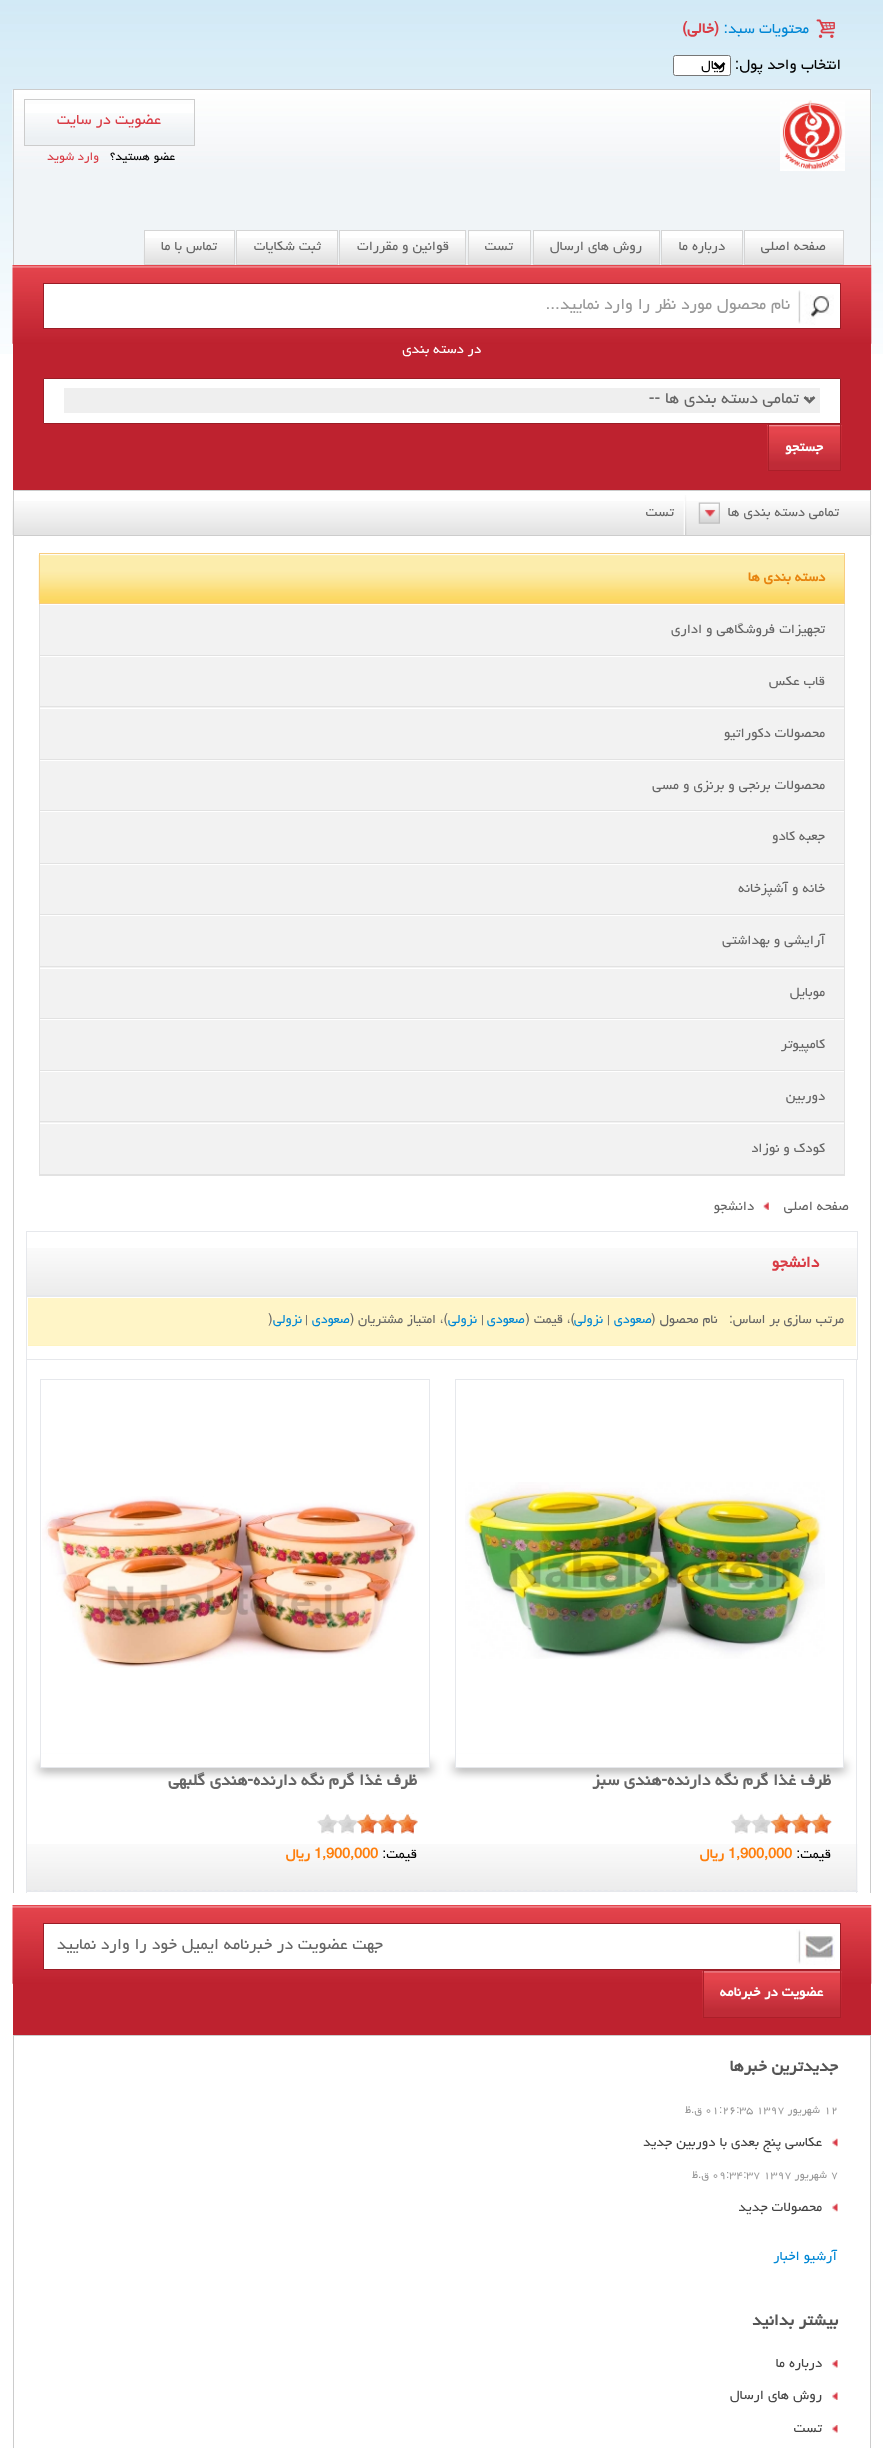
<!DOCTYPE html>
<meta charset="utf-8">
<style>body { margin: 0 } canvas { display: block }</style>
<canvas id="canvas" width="883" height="2448"></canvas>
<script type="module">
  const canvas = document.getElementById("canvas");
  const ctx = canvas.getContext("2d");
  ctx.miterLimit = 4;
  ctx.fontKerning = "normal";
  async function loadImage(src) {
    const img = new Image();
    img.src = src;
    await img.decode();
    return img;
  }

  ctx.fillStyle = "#ffffff";
  ctx.fillRect(0, 0, 883, 2448);
  ctx.drawImage(await loadImage("img1.png"), 0, 0, 883, 354);
  ctx.drawImage(await loadImage("img2.png"), 816, 19, 19, 19);
  ctx.direction = "rtl";
  ctx.font = "18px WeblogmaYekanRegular";
  ctx.fillStyle = "#0087d5";
  ctx.fillText("محتویات سبد:", 809, 33);
  ctx.font = "bold 18px WeblogmaYekanRegular";
  ctx.fillStyle = "#d93c45";
  ctx.fillText("(خالی)", 719, 33);
  ctx.font = "18px WeblogmaYekanRegular";
  ctx.fillStyle = "#000000";
  ctx.fillText("انتخاب واحد پول:", 841, 69);
  ctx.fillStyle = "#ffffff";
  ctx.beginPath();
  ctx.roundRect(673.5, 55.5, 57, 20, 2);
  ctx.fill();
  ctx.strokeStyle = "#767676";
  ctx.stroke();
  ctx.beginPath();
  ctx.moveTo(714.5, 63);
  ctx.lineTo(719.5, 68);
  ctx.lineTo(724.5, 63);
  ctx.strokeStyle = "#000000";
  ctx.lineWidth = 2.5;
  ctx.stroke();
  ctx.font = "16px WeblogmaYekanRegular";
  ctx.fillStyle = "#000000";
  ctx.fillText("ریال", 725, 69);
  ctx.fillStyle = "#f0f4f7";
  ctx.fillRect(14, 173, 856, 92);
  ctx.drawImage(await loadImage("img3.png"), 12, 90, 860, 83);
  ctx.fillStyle = "#cccccc";
  ctx.fillRect(13, 89, 858, 1);
  ctx.fillRect(870, 89, 1, 176);
  ctx.fillRect(13, 89, 1, 176);
  ctx.drawImage(await loadImage("img4.png"), 780, 100, 65, 71);
  ctx.fillStyle = "#ffffff";
  ctx.fillRect(25, 104, 169, 9);
  ctx.drawImage(await loadImage("img5.png"), 25, 113, 169, 32);
  ctx.strokeStyle = "#cccccc";
  ctx.lineWidth = 1;
  ctx.strokeRect(24.5, 99.5, 170, 46);
  ctx.font = "18px WeblogmaYekanRegular";
  ctx.fillStyle = "#d93c45";
  ctx.fillText("عضویت در سایت", 161, 124);
  ctx.font = "14.5px WeblogmaYekanRegular";
  ctx.fillStyle = "#000000";
  ctx.fillText("عضو هستید؟", 175, 160);
  ctx.fillStyle = "#d93c45";
  ctx.fillText("وارد شوید", 99, 160);
  ctx.fillStyle = "#ffffff";
  ctx.fillRect(745, 231, 98, 33);
  ctx.drawImage(await loadImage("img6.png"), 743, 238, 100, 26);
  ctx.strokeStyle = "#d5d5d5";
  ctx.strokeRect(744.5, 230.5, 99, 34);
  ctx.font = "16.25px WeblogmaYekanRegular";
  ctx.fillStyle = "#666666";
  ctx.fillText("صفحه اصلی", 826, 250);
  ctx.fillStyle = "#ffffff";
  ctx.fillRect(662, 231, 80, 33);
  ctx.drawImage(await loadImage("img7.png"), 662, 238, 80, 26);
  ctx.strokeRect(661.5, 230.5, 81, 34);
  ctx.fillStyle = "#666666";
  ctx.fillText("درباره ما", 725, 250);
  ctx.drawImage(await loadImage("img8.png"), 532, 231, 127, 33);
  ctx.strokeRect(533.5, 230.5, 126, 34);
  ctx.fillText("روش های ارسال", 642, 250);
  ctx.drawImage(await loadImage("img9.png"), 467, 231, 65, 33);
  ctx.strokeRect(468.5, 230.5, 62, 34);
  ctx.fillText("تست", 513, 250);
  ctx.fillStyle = "#ffffff";
  ctx.fillRect(340, 231, 125, 33);
  ctx.drawImage(await loadImage("img10.png"), 338, 238, 129, 26);
  ctx.strokeRect(339.5, 230.5, 126, 34);
  ctx.fillStyle = "#666666";
  ctx.fillText("قوانین و مقررات", 449, 250);
  ctx.fillStyle = "#ffffff";
  ctx.fillRect(237, 231, 100, 33);
  ctx.drawImage(await loadImage("img11.png"), 237, 238, 100, 26);
  ctx.strokeRect(236.5, 230.5, 101, 34);
  ctx.fillStyle = "#666666";
  ctx.fillText("ثبت شکایات", 321, 250);
  ctx.fillStyle = "#ffffff";
  ctx.fillRect(145, 231, 89, 33);
  ctx.drawImage(await loadImage("img12.png"), 143, 238, 91, 26);
  ctx.strokeRect(144.5, 230.5, 90, 34);
  ctx.fillStyle = "#666666";
  ctx.fillText("تماس با ما", 217, 250);
  ctx.fillStyle = "#be222f";
  ctx.fillRect(13, 343, 858, 147);
  ctx.drawImage(await loadImage("img13.png"), 12, 265, 860, 79);
  ctx.fillStyle = "#ffffff";
  ctx.fillRect(44, 284, 796, 44);
  ctx.drawImage(await loadImage("img14.png"), 798, 290, 36, 35);
  ctx.strokeStyle = "#9a1d26";
  ctx.strokeRect(43.5, 283.5, 797, 45);
  ctx.font = "19.5px WeblogmaYekanRegular";
  ctx.fillStyle = "#999999";
  ctx.fillText("نام محصول مورد نظر را وارد نمایید...", 790, 309);
  ctx.font = "16.25px WeblogmaYekanRegular";
  ctx.fillStyle = "#ffffff";
  ctx.fillText("در دسته بندی", 481, 353);
  ctx.beginPath();
  ctx.rect(43.5, 378.5, 797, 45);
  ctx.fill();
  ctx.stroke();
  ctx.fillStyle = "#efefef";
  ctx.fillRect(64, 388, 756, 25);
  ctx.beginPath();
  ctx.moveTo(804.5, 397);
  ctx.lineTo(809.5, 402);
  ctx.lineTo(814.5, 397);
  ctx.strokeStyle = "#666666";
  ctx.lineWidth = 2.5;
  ctx.stroke();
  ctx.font = "19.5px WeblogmaYekanRegular";
  ctx.fillStyle = "#666666";
  ctx.fillText("-- تمامی دسته بندی ها --", 815, 403);
  ctx.drawImage(await loadImage("img15.png"), 767, 425, 75, 46);
  ctx.strokeStyle = "#ab1f29";
  ctx.lineWidth = 1;
  ctx.strokeRect(768.5, 424.5, 72, 46);
  ctx.font = "bold 16.25px WeblogmaYekanRegular";
  ctx.fillStyle = "#ffffff";
  ctx.fillText("جستجو", 823, 451);
  ctx.drawImage(await loadImage("img16.png"), 12, 501, 860, 34);
  ctx.strokeStyle = "#cccccc";
  ctx.strokeRect(13.5, 490.5, 857, 45);
  ctx.drawImage(await loadImage("img17.png"), 698, 502, 22, 22);
  ctx.font = "16.25px WeblogmaYekanRegular";
  ctx.fillStyle = "#666666";
  ctx.fillText("تمامی دسته بندی ها", 839, 516);
  ctx.drawImage(await loadImage("img18.png"), 683, 495, 4, 40);
  ctx.fillText("تست", 674, 516);
  ctx.fillStyle = "#cccccc";
  ctx.fillRect(870, 536, 1, 1357);
  ctx.fillRect(13, 536, 1, 1357);
  ctx.fillStyle = "#fdd65d";
  ctx.fillRect(40, 600, 804, 3);
  ctx.drawImage(await loadImage("img19.png"), 38, 553, 806, 47);
  ctx.strokeStyle = "#f8cd7f";
  ctx.strokeRect(39.5, 553.5, 805, 50);
  ctx.font = "bold 16.25px WeblogmaYekanRegular";
  ctx.fillStyle = "#e7840f";
  ctx.fillText("دسته بندی ها", 825, 581);
  ctx.fillStyle = "#e2e2e2";
  ctx.fillRect(844, 604, 1, 572);
  ctx.fillRect(39, 1175, 806, 1);
  ctx.fillRect(39, 604, 1, 572);
  ctx.fillStyle = "#f2f2f2";
  ctx.fillRect(40, 605, 804, 50);
  ctx.fillStyle = "#e2e2e2";
  ctx.fillRect(40, 655, 804, 1);
  ctx.font = "16.25px WeblogmaYekanRegular";
  ctx.fillStyle = "#666666";
  ctx.fillText("تجهیزات فروشگاهی و اداری", 825, 633);
  ctx.fillStyle = "#f2f2f2";
  ctx.fillRect(40, 657, 804, 51);
  ctx.fillStyle = "#e2e2e2";
  ctx.fillRect(40, 706, 804, 1);
  ctx.fillStyle = "#666666";
  ctx.fillText("قاب عکس", 825, 685);
  ctx.fillStyle = "#f2f2f2";
  ctx.fillRect(40, 709, 804, 50);
  ctx.fillStyle = "#e2e2e2";
  ctx.fillRect(40, 759, 804, 1);
  ctx.fillStyle = "#666666";
  ctx.fillText("محصولات دکوراتیو", 825, 737);
  ctx.fillStyle = "#f2f2f2";
  ctx.fillRect(40, 761, 804, 49);
  ctx.fillStyle = "#e2e2e2";
  ctx.fillRect(40, 810, 804, 1);
  ctx.fillStyle = "#666666";
  ctx.fillText("محصولات برنجی و برنزی و مسی", 825, 789);
  ctx.fillStyle = "#f2f2f2";
  ctx.fillRect(40, 812, 804, 51);
  ctx.fillStyle = "#e2e2e2";
  ctx.fillRect(40, 863, 804, 1);
  ctx.fillStyle = "#666666";
  ctx.fillText("جعبه کادو", 825, 840);
  ctx.fillStyle = "#f2f2f2";
  ctx.fillRect(40, 865, 804, 49);
  ctx.fillStyle = "#e2e2e2";
  ctx.fillRect(40, 914, 804, 1);
  ctx.fillStyle = "#666666";
  ctx.fillText("خانه و آشپزخانه", 825, 892);
  ctx.fillStyle = "#f2f2f2";
  ctx.fillRect(40, 916, 804, 52);
  ctx.fillStyle = "#e2e2e2";
  ctx.fillRect(40, 966, 804, 1);
  ctx.fillStyle = "#666666";
  ctx.fillText("آرایشی و بهداشتی", 825, 944);
  ctx.fillStyle = "#f2f2f2";
  ctx.fillRect(40, 969, 804, 49);
  ctx.fillStyle = "#e2e2e2";
  ctx.fillRect(40, 1018, 804, 1);
  ctx.fillStyle = "#666666";
  ctx.fillText("موبایل", 825, 996);
  ctx.fillStyle = "#f2f2f2";
  ctx.fillRect(40, 1020, 804, 50);
  ctx.fillStyle = "#e2e2e2";
  ctx.fillRect(40, 1070, 804, 1);
  ctx.fillStyle = "#666666";
  ctx.fillText("کامپیوتر", 825, 1048);
  ctx.fillStyle = "#f2f2f2";
  ctx.fillRect(40, 1072, 804, 51);
  ctx.fillStyle = "#e2e2e2";
  ctx.fillRect(40, 1121, 804, 1);
  ctx.fillStyle = "#666666";
  ctx.fillText("دوربین", 825, 1100);
  ctx.fillStyle = "#f2f2f2";
  ctx.fillRect(40, 1124, 804, 50);
  ctx.fillStyle = "#e2e2e2";
  ctx.fillRect(40, 1174, 804, 1);
  ctx.fillStyle = "#666666";
  ctx.fillText("کودک و نوزاد", 825, 1152);
  ctx.fillText("صفحه اصلی", 849, 1210);
  ctx.drawImage(await loadImage("img20.png"), 763, 1202, 6, 8);
  ctx.fillText("دانشجو", 754, 1210);
  ctx.drawImage(await loadImage("img21.png"), 27, 1248, 830, 47);
  ctx.strokeStyle = "#e6e8ec";
  ctx.strokeRect(26.5, 1231.5, 831, 64);
  ctx.font = "bold 19px WeblogmaYekanRegular";
  ctx.fillStyle = "#d93c45";
  ctx.fillText("دانشجو", 819, 1267);
  ctx.strokeRect(26.5, 1296.5, 831, 63);
  ctx.fillStyle = "#fff5c7";
  ctx.fillRect(28, 1298, 828, 47);
  ctx.fillStyle = "#fef3c0";
  ctx.fillRect(28, 1345, 828, 1);
  ctx.font = "15.5px WeblogmaYekanRegular";
  ctx.fillStyle = "#666666";
  ctx.fillText("مرتب سازی بر اساس:   نام محصول (", 844, 1323);
  ctx.fillStyle = "#0087d5";
  ctx.fillText("صعودی", 652, 1323);
  ctx.direction = "ltr";
  ctx.font = "11px Liberation Sans";
  ctx.fillStyle = "#666666";
  ctx.fillText("|", 607, 1323);
  ctx.direction = "rtl";
  ctx.font = "15.5px WeblogmaYekanRegular";
  ctx.fillStyle = "#0087d5";
  ctx.fillText("نزولی", 603, 1323);
  ctx.fillStyle = "#666666";
  ctx.fillText(")، قیمت (", 575, 1323);
  ctx.fillStyle = "#0087d5";
  ctx.fillText("صعودی", 525, 1323);
  ctx.direction = "ltr";
  ctx.font = "11px Liberation Sans";
  ctx.fillStyle = "#666666";
  ctx.fillText("|", 481, 1323);
  ctx.direction = "rtl";
  ctx.font = "15.5px WeblogmaYekanRegular";
  ctx.fillStyle = "#0087d5";
  ctx.fillText("نزولی", 477, 1323);
  ctx.fillStyle = "#666666";
  ctx.fillText(")، امتیاز مشتریان (", 448, 1323);
  ctx.fillStyle = "#0087d5";
  ctx.fillText("صعودی", 350, 1323);
  ctx.direction = "ltr";
  ctx.font = "11px Liberation Sans";
  ctx.fillStyle = "#666666";
  ctx.fillText("|", 305, 1323);
  ctx.direction = "rtl";
  ctx.font = "15.5px WeblogmaYekanRegular";
  ctx.fillStyle = "#0087d5";
  ctx.fillText("نزولی", 302, 1323);
  ctx.direction = "ltr";
  ctx.fillStyle = "#666666";
  ctx.fillText(")", 268, 1323);
  ctx.drawImage(await loadImage("img28.png"), 27, 1844, 831, 47);
  ctx.fillStyle = "#e6e8ec";
  ctx.fillRect(856, 1360, 1, 533);
  ctx.fillRect(26, 1891, 832, 1);
  ctx.beginPath();
  ctx.moveTo(442.5, 1890.5);
  ctx.lineTo(856, 1890.5);
  ctx.lineWidth = 1.2;
  ctx.setLineDash([3.75, 2.46]);
  ctx.stroke();
  ctx.fillStyle = "#000000";
  ctx.filter = "blur(5.5px)";
  ctx.beginPath();
  ctx.rect(454, 1766, 391, 3);
  ctx.fill();
  ctx.filter = "none";
  ctx.fillStyle = "#ffffff";
  ctx.fillRect(456, 1754, 387, 13);
  ctx.lineWidth = 1;
  ctx.setLineDash([]);
  ctx.strokeRect(455.5, 1379.5, 388, 388);
  ctx.drawImage(await loadImage("img22.png"), 465, 1482, 360, 177);
  ctx.direction = "rtl";
  ctx.font = "bold 19.5px WeblogmaYekanRegular";
  ctx.fillStyle = "#666666";
  ctx.fillText("ظرف غذا گرم نگه دارنده-هندي سبز", 831, 1785);
  ctx.drawImage(await loadImage("img23.png"), 731, 1813, 101, 21);
  ctx.drawImage(await loadImage("img24.png"), 771, 1813, 61, 21);
  ctx.font = "16.25px WeblogmaYekanRegular";
  ctx.fillStyle = "#000000";
  ctx.fillText("قیمت:", 831, 1858);
  ctx.direction = "ltr";
  ctx.font = "bold 16.25px WeblogmaYekanRegular";
  ctx.fillStyle = "#fe7f0d";
  ctx.fillText("1,900,000", 728, 1858);
  ctx.direction = "rtl";
  ctx.fillText("ریال", 724, 1858);
  ctx.beginPath();
  ctx.moveTo(27.5, 1890.5);
  ctx.lineTo(442.5, 1890.5);
  ctx.lineWidth = 1.2;
  ctx.setLineDash([3.75, 2.48]);
  ctx.stroke();
  ctx.fillStyle = "#e6e8ec";
  ctx.fillRect(26, 1360, 1, 533);
  ctx.fillStyle = "#000000";
  ctx.filter = "blur(5.5px)";
  ctx.beginPath();
  ctx.rect(39, 1766, 392, 3);
  ctx.fill();
  ctx.filter = "none";
  ctx.fillStyle = "#ffffff";
  ctx.fillRect(41, 1754, 388, 13);
  ctx.lineWidth = 1;
  ctx.setLineDash([]);
  ctx.strokeRect(40.5, 1379.5, 389, 388);
  ctx.drawImage(await loadImage("img25.png"), 42, 1496, 376, 172);
  ctx.font = "bold 19.5px WeblogmaYekanRegular";
  ctx.fillStyle = "#666666";
  ctx.fillText("ظرف غذا گرم نگه دارنده-هندي گلبهي", 417, 1785);
  ctx.drawImage(await loadImage("img26.png"), 317, 1814, 101, 20);
  ctx.drawImage(await loadImage("img27.png"), 357, 1813, 61, 21);
  ctx.font = "16.25px WeblogmaYekanRegular";
  ctx.fillStyle = "#000000";
  ctx.fillText("قیمت:", 417, 1858);
  ctx.direction = "ltr";
  ctx.font = "bold 16.25px WeblogmaYekanRegular";
  ctx.fillStyle = "#fe7f0d";
  ctx.fillText("1,900,000", 314, 1858);
  ctx.direction = "rtl";
  ctx.fillText("ریال", 310, 1858);
  ctx.fillStyle = "#be222f";
  ctx.fillRect(13, 1983, 858, 52);
  ctx.drawImage(await loadImage("img29.png"), 12, 1905, 860, 79);
  ctx.fillStyle = "#ffffff";
  ctx.fillRect(44, 1924, 796, 45);
  ctx.drawImage(await loadImage("img30.png"), 796, 1929, 39, 36);
  ctx.strokeStyle = "#9a1d26";
  ctx.strokeRect(43.5, 1923.5, 797, 46);
  ctx.font = "19.5px WeblogmaYekanRegular";
  ctx.fillStyle = "#666666";
  ctx.fillText("جهت عضویت در خبرنامه ایمیل خود را وارد نمایید", 383, 1949);
  ctx.drawImage(await loadImage("img31.png"), 702, 1971, 140, 47);
  ctx.strokeStyle = "#ab1f29";
  ctx.strokeRect(703.5, 1970.5, 137, 47);
  ctx.font = "bold 16.25px WeblogmaYekanRegular";
  ctx.fillStyle = "#ffffff";
  ctx.fillText("عضویت در خبرنامه", 823, 1996);
  ctx.strokeStyle = "#cccccc";
  ctx.strokeRect(13.5, 2035.5, 857, 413);
  ctx.font = "bold 19.5px WeblogmaYekanRegular";
  ctx.fillStyle = "#555555";
  ctx.fillText("جدیدترین خبرها", 838, 2071);
  ctx.direction = "ltr";
  ctx.font = "13px WeblogmaYekanRegular";
  ctx.fillStyle = "#999999";
  ctx.fillText("۱۲", 824, 2113);
  ctx.direction = "rtl";
  ctx.fillText("شهریور", 820, 2113);
  ctx.direction = "ltr";
  ctx.fillText("۰۱:۲۶:۳۵ ۱۳۹۷", 705, 2113);
  ctx.direction = "rtl";
  ctx.fillText("ق.ظ", 702, 2113);
  ctx.drawImage(await loadImage("img32.png"), 832, 2138, 6, 9);
  ctx.font = "16.25px WeblogmaYekanRegular";
  ctx.fillStyle = "#444444";
  ctx.fillText("عکاسی پنج بعدی با دوربین جدید", 822, 2146);
  ctx.direction = "ltr";
  ctx.font = "13px WeblogmaYekanRegular";
  ctx.fillStyle = "#999999";
  ctx.fillText("۷", 831, 2178);
  ctx.direction = "rtl";
  ctx.fillText("شهریور", 827, 2178);
  ctx.direction = "ltr";
  ctx.fillText("۰۹:۳۴:۳۷ ۱۳۹۷", 712, 2178);
  ctx.direction = "rtl";
  ctx.fillText("ق.ظ", 709, 2178);
  ctx.drawImage(await loadImage("img32.png"), 832, 2203, 6, 9);
  ctx.font = "16.25px WeblogmaYekanRegular";
  ctx.fillStyle = "#444444";
  ctx.fillText("محصولات جدید", 822, 2211);
  ctx.fillStyle = "#0087d5";
  ctx.fillText("آرشیو اخبار", 837, 2260);
  ctx.font = "bold 19.5px WeblogmaYekanRegular";
  ctx.fillStyle = "#555555";
  ctx.fillText("بیشتر بدانید", 838, 2325);
  ctx.drawImage(await loadImage("img33.png"), 832, 2360, 6, 8);
  ctx.font = "16.25px WeblogmaYekanRegular";
  ctx.fillStyle = "#444444";
  ctx.fillText("درباره ما", 822, 2367);
  ctx.drawImage(await loadImage("img34.png"), 832, 2392, 6, 8);
  ctx.fillText("روش های ارسال", 822, 2399);
  ctx.drawImage(await loadImage("img33.png"), 832, 2425, 6, 8);
  ctx.fillText("تست", 822, 2432);
</script>
